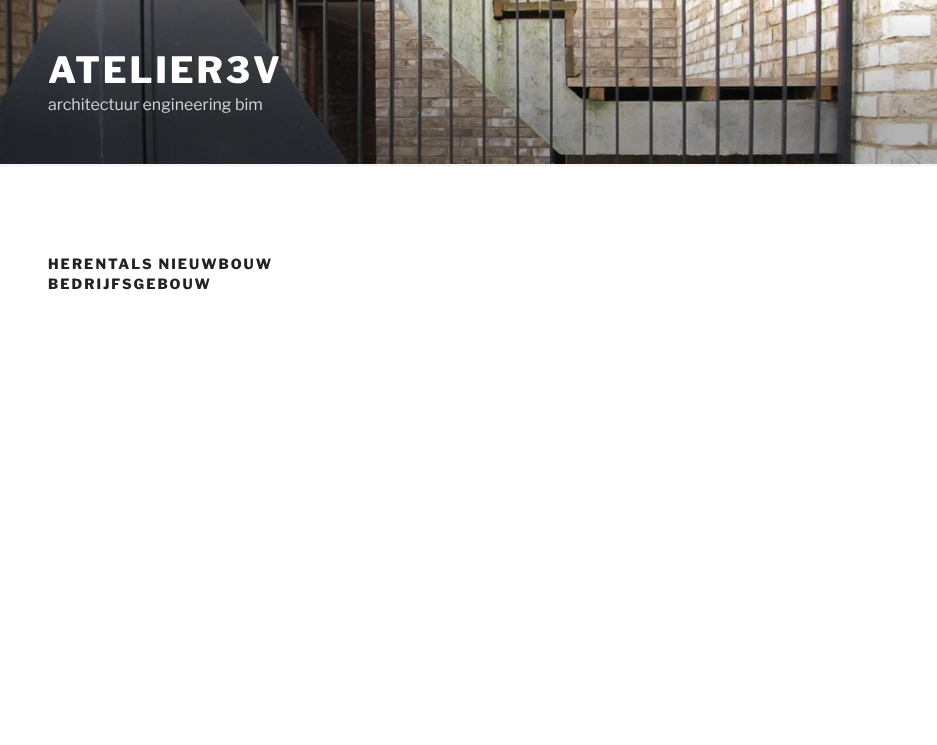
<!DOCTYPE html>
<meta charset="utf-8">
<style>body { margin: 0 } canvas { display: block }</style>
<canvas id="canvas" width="937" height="745"></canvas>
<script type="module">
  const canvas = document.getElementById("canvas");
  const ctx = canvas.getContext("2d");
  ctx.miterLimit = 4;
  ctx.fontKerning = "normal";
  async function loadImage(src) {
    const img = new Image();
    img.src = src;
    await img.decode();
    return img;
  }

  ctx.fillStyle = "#ffffff";
  ctx.fillRect(0, 0, 937, 745);
  ctx.fillStyle = "#fafafa";
  ctx.fillRect(0, 164, 937, 1);
  ctx.drawImage(await loadImage("img1.png"), 0, 0, 937, 164);
  ctx.letterSpacing = "2.9px";
  ctx.font = "100 36px Libre Franklin";
  ctx.fillStyle = "#ffffff";
  ctx.fillText("ATELIER3V", 48, 83);
  ctx.letterSpacing = "0px";
  ctx.font = "100 16px 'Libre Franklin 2'";
  ctx.fillStyle = "#d5d5d6";
  ctx.fillText("architectuur engineering bim", 48, 110);
  ctx.fillStyle = "#eeeeee";
  ctx.fillRect(0, 165, 937, 1);
  ctx.letterSpacing = "2px";
  ctx.font = "100 14px Libre Franklin";
  ctx.fillStyle = "#222222";
  ctx.fillText("HERENTALS NIEUWBOUW", 48, 269);
  ctx.fillText("BEDRIJFSGEBOUW", 48, 289);
</script>
